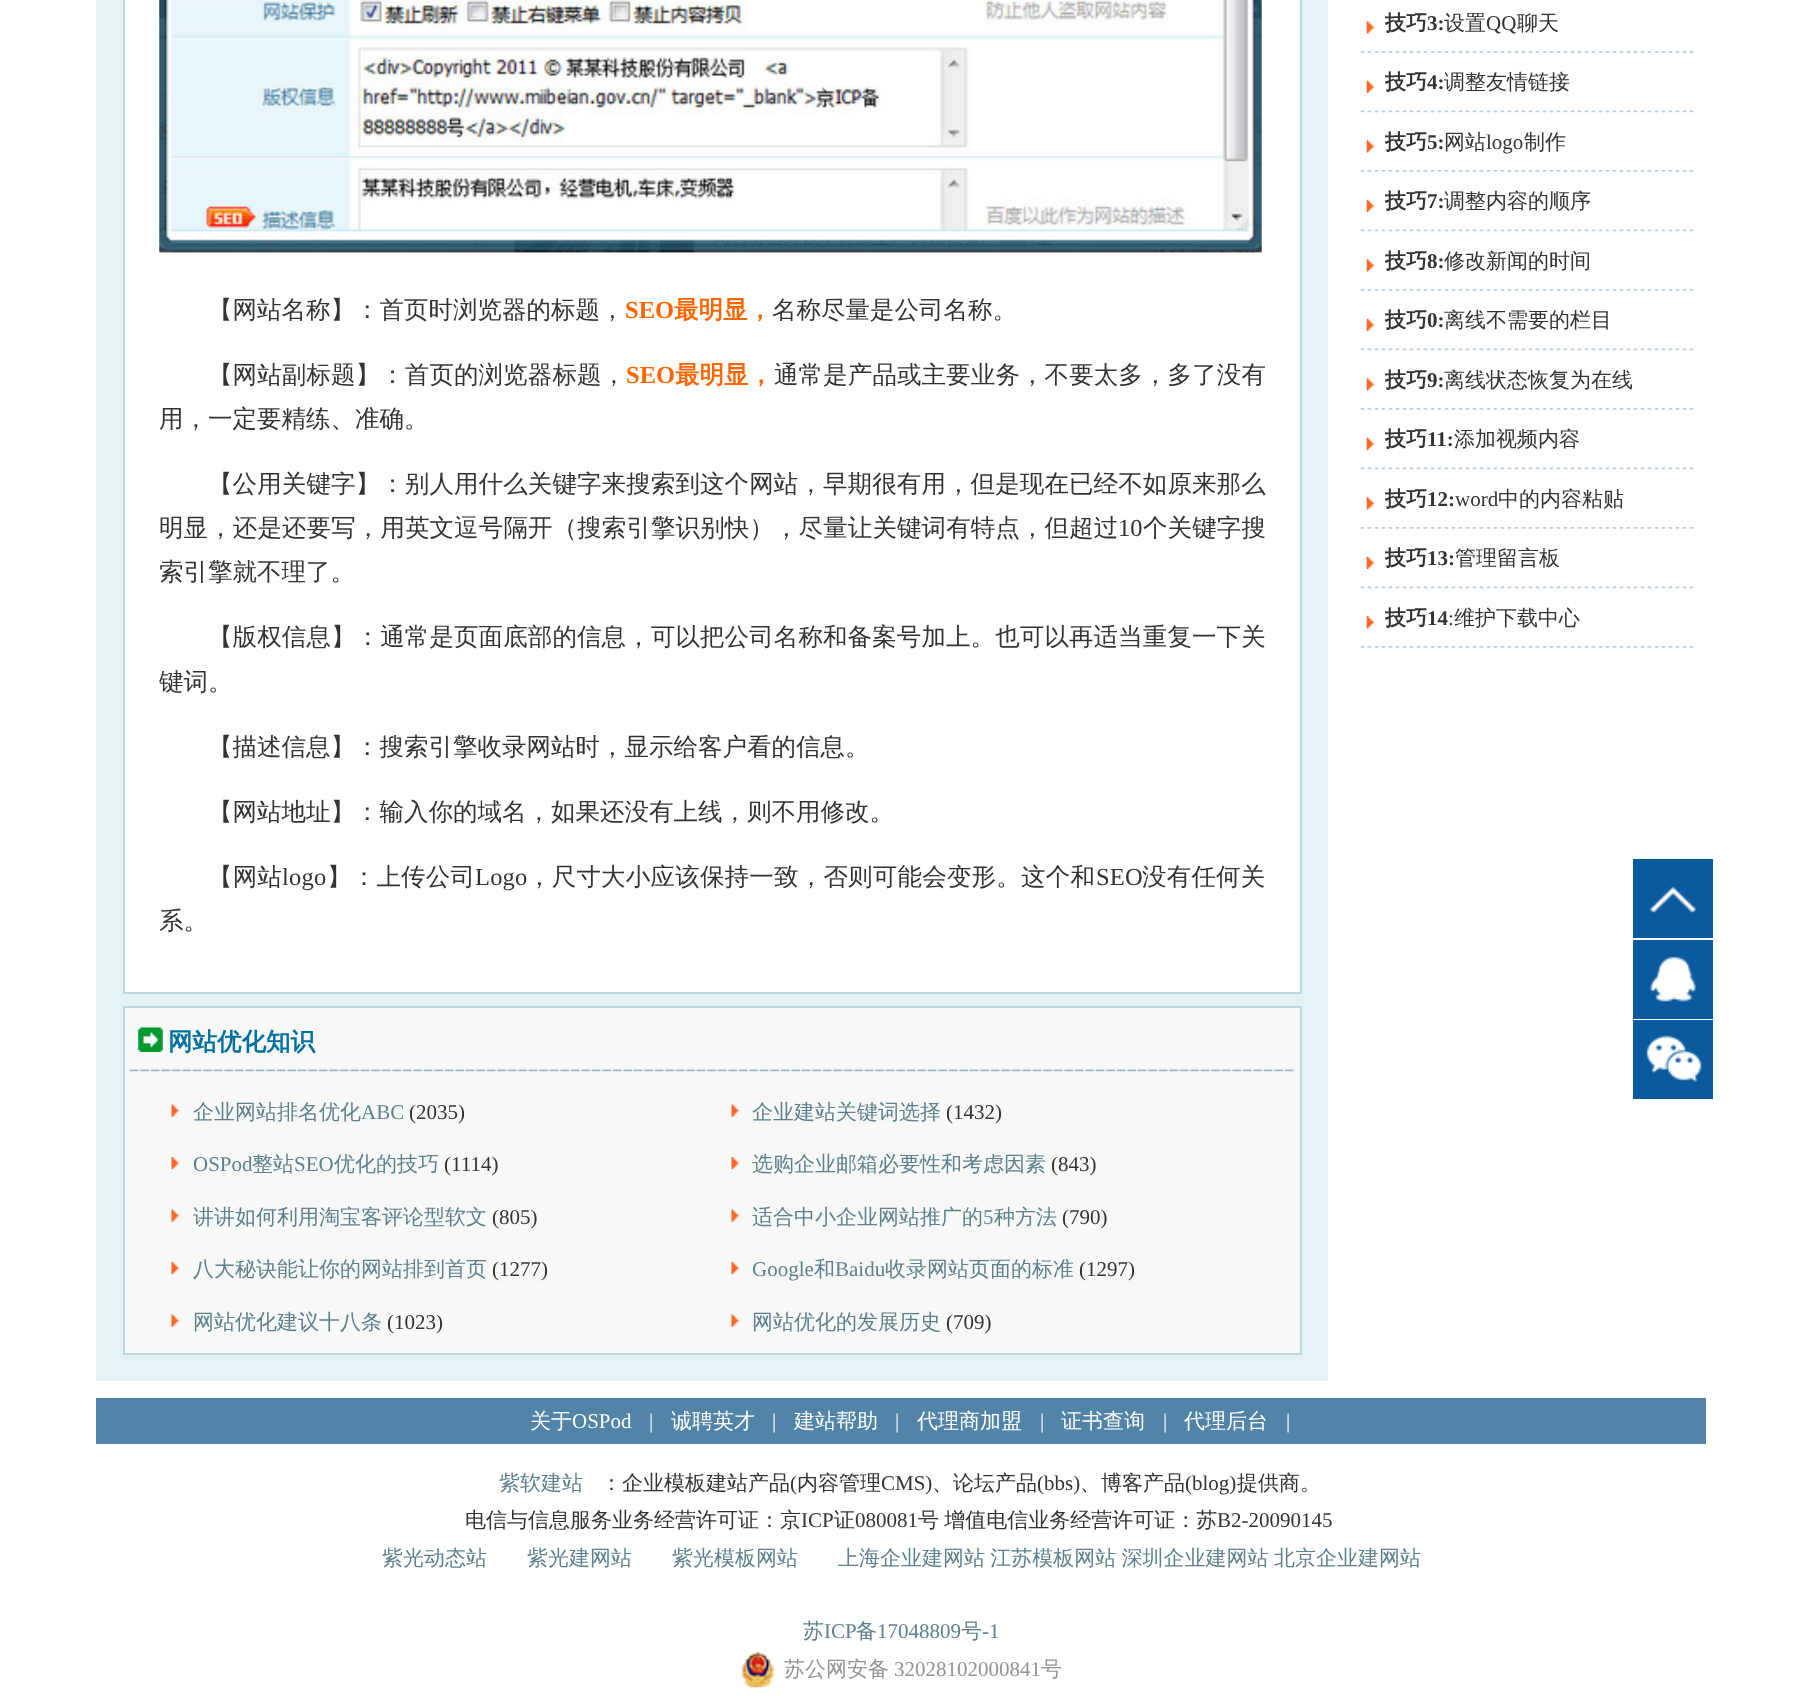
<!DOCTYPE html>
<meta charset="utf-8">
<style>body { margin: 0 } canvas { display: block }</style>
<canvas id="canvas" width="1801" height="1700"></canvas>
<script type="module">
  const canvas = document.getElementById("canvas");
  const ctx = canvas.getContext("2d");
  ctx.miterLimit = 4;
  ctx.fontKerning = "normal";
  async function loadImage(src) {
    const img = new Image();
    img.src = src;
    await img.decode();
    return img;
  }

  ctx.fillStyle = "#ffffff";
  ctx.fillRect(0, 0, 1801, 1700);
  ctx.fillStyle = "#e4f2f6";
  ctx.fillRect(96, 0, 1232, 1381);
  ctx.fillStyle = "#ffffff";
  ctx.fillRect(125, 0, 1175, 992);
  ctx.fillStyle = "#bbd9e0";
  ctx.fillRect(1300, 0, 2, 994);
  ctx.fillRect(123, 992, 1179, 2);
  ctx.fillRect(123, 0, 2, 994);
  ctx.drawImage(await loadImage("img1.png"), 159, 0, 1103, 254);
  ctx.font = "500 24.5px WenQuanYi Zen Hei";
  ctx.fillStyle = "#333333";
  ctx.fillText("【网站名称】：首页时浏览器的标题，", 208, 318);
  ctx.font = "bold 24.5px Liberation Serif";
  ctx.fillStyle = "#ff6600";
  ctx.fillText("SEO", 625, 318);
  ctx.font = "bold 24.5px WenQuanYi Zen Hei";
  ctx.fillText("最明显，", 674, 318);
  ctx.font = "500 24.5px WenQuanYi Zen Hei";
  ctx.fillStyle = "#333333";
  ctx.fillText("名称尽量是公司名称。", 772, 318);
  ctx.letterSpacing = "0.1px";
  ctx.fillText("【网站副标题】：首页的浏览器标题，", 208, 383);
  ctx.letterSpacing = "0px";
  ctx.font = "bold 24.5px Liberation Serif";
  ctx.fillStyle = "#ff6600";
  ctx.fillText("SEO", 626, 383);
  ctx.font = "bold 24.5px WenQuanYi Zen Hei";
  ctx.fillText("最明显，", 675, 383);
  ctx.letterSpacing = "0.1px";
  ctx.font = "500 24.5px WenQuanYi Zen Hei";
  ctx.fillStyle = "#333333";
  ctx.fillText("通常是产品或主要业务，不要太多，多了没有", 774, 383);
  ctx.letterSpacing = "0px";
  ctx.fillText("用，一定要精练、准确。", 159, 427);
  ctx.letterSpacing = "0.1px";
  ctx.fillText("【公用关键字】：别人用什么关键字来搜索到这个网站，早期很有用，但是现在已经不如原来那么", 208, 492);
  ctx.fillText("明显，还是还要写，用英文逗号隔开（搜索引擎识别快），尽量让关键词有特点，但超过", 159, 536);
  ctx.font = "24.5px Liberation Serif";
  ctx.fillText("10", 1118, 536);
  ctx.font = "500 24.5px WenQuanYi Zen Hei";
  ctx.fillText("个关键字搜", 1143, 536);
  ctx.letterSpacing = "0px";
  ctx.fillText("索引擎就不理了。", 159, 580);
  ctx.letterSpacing = "0.1px";
  ctx.fillText("【版权信息】：通常是页面底部的信息，可以把公司名称和备案号加上。也可以再适当重复一下关", 208, 645);
  ctx.letterSpacing = "0px";
  ctx.fillText("键词。", 159, 690);
  ctx.fillText("【描述信息】：搜索引擎收录网站时，显示给客户看的信息。", 208, 755);
  ctx.fillText("【网站地址】：输入你的域名，如果还没有上线，则不用修改。", 208, 820);
  ctx.letterSpacing = "0.2px";
  ctx.fillText("【网站", 208, 885);
  ctx.font = "24.5px Liberation Serif";
  ctx.fillText("logo", 282, 885);
  ctx.font = "500 24.5px WenQuanYi Zen Hei";
  ctx.fillText("】：上传公司", 327, 885);
  ctx.font = "24.5px Liberation Serif";
  ctx.fillText("Logo", 475, 885);
  ctx.font = "500 24.5px WenQuanYi Zen Hei";
  ctx.fillText("，尺寸大小应该保持一致，否则可能会变形。这个和", 527, 885);
  ctx.font = "24.5px Liberation Serif";
  ctx.fillText("SEO", 1096, 885);
  ctx.font = "500 24.5px WenQuanYi Zen Hei";
  ctx.fillText("没有任何关", 1142, 885);
  ctx.letterSpacing = "0px";
  ctx.fillText("系。", 159, 929);
  ctx.fillStyle = "#f8f8f8";
  ctx.beginPath();
  ctx.rect(124, 1007, 1177, 347);
  ctx.fill();
  ctx.strokeStyle = "#bbd9e0";
  ctx.lineWidth = 2;
  ctx.stroke();
  ctx.drawImage(await loadImage("img2.png"), 129, 1069, 1166, 3);
  ctx.drawImage(await loadImage("img3.png"), 138, 1027, 25, 25);
  ctx.font = "bold 24.5px WenQuanYi Zen Hei";
  ctx.fillStyle = "#00709f";
  ctx.fillText("网站优化知识", 168, 1050);
  ctx.drawImage(await loadImage("img4.png"), 171, 1104, 8, 13);
  ctx.font = "500 21px WenQuanYi Zen Hei";
  ctx.fillStyle = "#5e808d";
  ctx.fillText("企业网站排名优化", 193, 1119);
  ctx.font = "21px Liberation Serif";
  ctx.fillText("ABC", 361, 1119);
  ctx.fillStyle = "#333333";
  ctx.fillText("(2035)", 409, 1119);
  ctx.drawImage(await loadImage("img4.png"), 731, 1104, 8, 13);
  ctx.font = "500 21px WenQuanYi Zen Hei";
  ctx.fillStyle = "#5e808d";
  ctx.fillText("企业建站关键词选择", 752, 1119);
  ctx.font = "21px Liberation Serif";
  ctx.fillStyle = "#333333";
  ctx.fillText("(1432)", 946, 1119);
  ctx.drawImage(await loadImage("img5.png"), 171, 1157, 8, 13);
  ctx.fillStyle = "#5e808d";
  ctx.fillText("OSPod", 193, 1171);
  ctx.font = "500 21px WenQuanYi Zen Hei";
  ctx.fillText("整站", 252, 1171);
  ctx.font = "21px Liberation Serif";
  ctx.fillText("SEO", 294, 1171);
  ctx.font = "500 21px WenQuanYi Zen Hei";
  ctx.fillText("优化的技巧", 334, 1171);
  ctx.font = "21px Liberation Serif";
  ctx.fillStyle = "#333333";
  ctx.fillText("(1114)", 444, 1171);
  ctx.drawImage(await loadImage("img5.png"), 731, 1157, 8, 13);
  ctx.font = "500 21px WenQuanYi Zen Hei";
  ctx.fillStyle = "#5e808d";
  ctx.fillText("选购企业邮箱必要性和考虑因素", 752, 1171);
  ctx.font = "21px Liberation Serif";
  ctx.fillStyle = "#333333";
  ctx.fillText("(843)", 1051, 1171);
  ctx.drawImage(await loadImage("img4.png"), 171, 1209, 8, 13);
  ctx.font = "500 21px WenQuanYi Zen Hei";
  ctx.fillStyle = "#5e808d";
  ctx.fillText("讲讲如何利用淘宝客评论型软文", 193, 1224);
  ctx.font = "21px Liberation Serif";
  ctx.fillStyle = "#333333";
  ctx.fillText("(805)", 492, 1224);
  ctx.drawImage(await loadImage("img4.png"), 731, 1209, 8, 13);
  ctx.font = "500 21px WenQuanYi Zen Hei";
  ctx.fillStyle = "#5e808d";
  ctx.fillText("适合中小企业网站推广的", 752, 1224);
  ctx.font = "21px Liberation Serif";
  ctx.fillText("5", 983, 1224);
  ctx.font = "500 21px WenQuanYi Zen Hei";
  ctx.fillText("种方法", 994, 1224);
  ctx.font = "21px Liberation Serif";
  ctx.fillStyle = "#333333";
  ctx.fillText("(790)", 1062, 1224);
  ctx.drawImage(await loadImage("img5.png"), 171, 1262, 8, 13);
  ctx.font = "500 21px WenQuanYi Zen Hei";
  ctx.fillStyle = "#5e808d";
  ctx.fillText("八大秘诀能让你的网站排到首页", 193, 1276);
  ctx.font = "21px Liberation Serif";
  ctx.fillStyle = "#333333";
  ctx.fillText("(1277)", 492, 1276);
  ctx.drawImage(await loadImage("img5.png"), 731, 1262, 8, 13);
  ctx.fillStyle = "#5e808d";
  ctx.fillText("Google", 752, 1276);
  ctx.font = "500 21px WenQuanYi Zen Hei";
  ctx.fillText("和", 814, 1276);
  ctx.font = "21px Liberation Serif";
  ctx.fillText("Baidu", 835, 1276);
  ctx.font = "500 21px WenQuanYi Zen Hei";
  ctx.fillText("收录网站页面的标准", 885, 1276);
  ctx.font = "21px Liberation Serif";
  ctx.fillStyle = "#333333";
  ctx.fillText("(1297)", 1079, 1276);
  ctx.drawImage(await loadImage("img4.png"), 171, 1314, 8, 13);
  ctx.font = "500 21px WenQuanYi Zen Hei";
  ctx.fillStyle = "#5e808d";
  ctx.fillText("网站优化建议十八条", 193, 1329);
  ctx.font = "21px Liberation Serif";
  ctx.fillStyle = "#333333";
  ctx.fillText("(1023)", 387, 1329);
  ctx.drawImage(await loadImage("img4.png"), 731, 1314, 8, 13);
  ctx.font = "500 21px WenQuanYi Zen Hei";
  ctx.fillStyle = "#5e808d";
  ctx.fillText("网站优化的发展历史", 752, 1329);
  ctx.font = "21px Liberation Serif";
  ctx.fillStyle = "#333333";
  ctx.fillText("(709)", 946, 1329);
  ctx.drawImage(await loadImage("img6.png"), 1360, 51, 334, 2);
  ctx.drawImage(await loadImage("img7.png"), 1366, 21, 8, 13);
  ctx.font = "bold 21px WenQuanYi Zen Hei";
  ctx.fillText("技巧", 1385, 30);
  ctx.font = "bold 21px Liberation Serif";
  ctx.fillText("3:", 1427, 30);
  ctx.font = "500 21px WenQuanYi Zen Hei";
  ctx.fillText("设置", 1444, 30);
  ctx.font = "21px Liberation Serif";
  ctx.fillText("QQ", 1486, 30);
  ctx.font = "500 21px WenQuanYi Zen Hei";
  ctx.fillText("聊天", 1517, 30);
  ctx.drawImage(await loadImage("img8.png"), 1360, 110, 334, 3);
  ctx.drawImage(await loadImage("img9.png"), 1366, 80, 8, 13);
  ctx.font = "bold 21px WenQuanYi Zen Hei";
  ctx.fillText("技巧", 1385, 89);
  ctx.font = "bold 21px Liberation Serif";
  ctx.fillText("4:", 1427, 89);
  ctx.font = "500 21px WenQuanYi Zen Hei";
  ctx.fillText("调整友情链接", 1444, 89);
  ctx.drawImage(await loadImage("img6.png"), 1360, 170, 334, 2);
  ctx.drawImage(await loadImage("img7.png"), 1366, 140, 8, 13);
  ctx.font = "bold 21px WenQuanYi Zen Hei";
  ctx.fillText("技巧", 1385, 149);
  ctx.font = "bold 21px Liberation Serif";
  ctx.fillText("5:", 1427, 149);
  ctx.font = "500 21px WenQuanYi Zen Hei";
  ctx.fillText("网站", 1444, 149);
  ctx.font = "21px Liberation Serif";
  ctx.fillText("logo", 1486, 149);
  ctx.font = "500 21px WenQuanYi Zen Hei";
  ctx.fillText("制作", 1524, 149);
  ctx.drawImage(await loadImage("img8.png"), 1360, 229, 334, 3);
  ctx.drawImage(await loadImage("img9.png"), 1366, 199, 8, 13);
  ctx.font = "bold 21px WenQuanYi Zen Hei";
  ctx.fillText("技巧", 1385, 208);
  ctx.font = "bold 21px Liberation Serif";
  ctx.fillText("7:", 1427, 208);
  ctx.font = "500 21px WenQuanYi Zen Hei";
  ctx.fillText("调整内容的顺序", 1444, 208);
  ctx.drawImage(await loadImage("img6.png"), 1360, 289, 334, 2);
  ctx.drawImage(await loadImage("img7.png"), 1366, 259, 8, 13);
  ctx.font = "bold 21px WenQuanYi Zen Hei";
  ctx.fillText("技巧", 1385, 268);
  ctx.font = "bold 21px Liberation Serif";
  ctx.fillText("8:", 1427, 268);
  ctx.font = "500 21px WenQuanYi Zen Hei";
  ctx.fillText("修改新闻的时间", 1444, 268);
  ctx.drawImage(await loadImage("img8.png"), 1360, 348, 334, 3);
  ctx.drawImage(await loadImage("img9.png"), 1366, 318, 8, 13);
  ctx.font = "bold 21px WenQuanYi Zen Hei";
  ctx.fillText("技巧", 1385, 327);
  ctx.font = "bold 21px Liberation Serif";
  ctx.fillText("0:", 1427, 327);
  ctx.font = "500 21px WenQuanYi Zen Hei";
  ctx.fillText("离线不需要的栏目", 1444, 327);
  ctx.drawImage(await loadImage("img6.png"), 1360, 408, 334, 2);
  ctx.drawImage(await loadImage("img7.png"), 1366, 378, 8, 13);
  ctx.font = "bold 21px WenQuanYi Zen Hei";
  ctx.fillText("技巧", 1385, 387);
  ctx.font = "bold 21px Liberation Serif";
  ctx.fillText("9:", 1427, 387);
  ctx.font = "500 21px WenQuanYi Zen Hei";
  ctx.fillText("离线状态恢复为在线", 1444, 387);
  ctx.drawImage(await loadImage("img8.png"), 1360, 467, 334, 3);
  ctx.drawImage(await loadImage("img9.png"), 1366, 437, 8, 13);
  ctx.font = "bold 21px WenQuanYi Zen Hei";
  ctx.fillText("技巧", 1385, 446);
  ctx.font = "bold 21px Liberation Serif";
  ctx.fillText("11:", 1427, 446);
  ctx.font = "500 21px WenQuanYi Zen Hei";
  ctx.fillText("添加视频内容", 1454, 446);
  ctx.drawImage(await loadImage("img6.png"), 1360, 527, 334, 2);
  ctx.drawImage(await loadImage("img7.png"), 1366, 497, 8, 13);
  ctx.font = "bold 21px WenQuanYi Zen Hei";
  ctx.fillText("技巧", 1385, 506);
  ctx.font = "bold 21px Liberation Serif";
  ctx.fillText("12:", 1427, 506);
  ctx.font = "21px Liberation Serif";
  ctx.fillText("word", 1455, 506);
  ctx.font = "500 21px WenQuanYi Zen Hei";
  ctx.fillText("中的内容粘贴", 1498, 506);
  ctx.drawImage(await loadImage("img8.png"), 1360, 586, 334, 3);
  ctx.drawImage(await loadImage("img9.png"), 1366, 556, 8, 13);
  ctx.font = "bold 21px WenQuanYi Zen Hei";
  ctx.fillText("技巧", 1385, 565);
  ctx.font = "bold 21px Liberation Serif";
  ctx.fillText("13:", 1427, 565);
  ctx.font = "500 21px WenQuanYi Zen Hei";
  ctx.fillText("管理留言板", 1455, 565);
  ctx.drawImage(await loadImage("img6.png"), 1360, 646, 334, 2);
  ctx.drawImage(await loadImage("img7.png"), 1366, 616, 8, 13);
  ctx.font = "bold 21px WenQuanYi Zen Hei";
  ctx.fillText("技巧", 1385, 625);
  ctx.font = "bold 21px Liberation Serif";
  ctx.fillText("14", 1427, 625);
  ctx.font = "21px Liberation Serif";
  ctx.fillText(":", 1448, 625);
  ctx.font = "500 21px WenQuanYi Zen Hei";
  ctx.fillText("维护下载中心", 1454, 625);
  ctx.fillStyle = "#0b5a9f";
  ctx.fillRect(1633, 859, 80, 79);
  ctx.drawImage(await loadImage("img10.png"), 1650, 886, 46, 27);
  ctx.fillRect(1633, 940, 80, 79);
  ctx.drawImage(await loadImage("img11.png"), 1650, 956, 46, 46);
  ctx.fillRect(1633, 1020, 80, 79);
  ctx.drawImage(await loadImage("img12.png"), 1646, 1035, 56, 47);
  ctx.fillStyle = "#5184a7";
  ctx.fillRect(96, 1398, 1610, 46);
  ctx.fillStyle = "#ffffff";
  ctx.fillText("关于", 530, 1428);
  ctx.font = "21px Liberation Serif";
  ctx.fillText("OSPod", 572, 1428);
  ctx.fillText("|", 649, 1428);
  ctx.font = "500 21px WenQuanYi Zen Hei";
  ctx.fillText("诚聘英才", 671, 1428);
  ctx.font = "21px Liberation Serif";
  ctx.fillText("|", 772, 1428);
  ctx.font = "500 21px WenQuanYi Zen Hei";
  ctx.fillText("建站帮助", 794, 1428);
  ctx.font = "21px Liberation Serif";
  ctx.fillText("|", 895, 1428);
  ctx.font = "500 21px WenQuanYi Zen Hei";
  ctx.fillText("代理商加盟", 917, 1428);
  ctx.font = "21px Liberation Serif";
  ctx.fillText("|", 1040, 1428);
  ctx.font = "500 21px WenQuanYi Zen Hei";
  ctx.fillText("证书查询", 1061, 1428);
  ctx.font = "21px Liberation Serif";
  ctx.fillText("|", 1163, 1428);
  ctx.font = "500 21px WenQuanYi Zen Hei";
  ctx.fillText("代理后台", 1184, 1428);
  ctx.font = "21px Liberation Serif";
  ctx.fillText("|", 1286, 1428);
  ctx.font = "500 21px WenQuanYi Zen Hei";
  ctx.fillStyle = "#5e808d";
  ctx.fillText("紫软建站", 499, 1490);
  ctx.fillStyle = "#333333";
  ctx.fillText("：企业模板建站产品", 601, 1490);
  ctx.font = "21px Liberation Serif";
  ctx.fillText("(", 790, 1490);
  ctx.font = "500 21px WenQuanYi Zen Hei";
  ctx.fillText("内容管理", 797, 1490);
  ctx.font = "21px Liberation Serif";
  ctx.fillText("CMS)", 881, 1490);
  ctx.font = "500 21px WenQuanYi Zen Hei";
  ctx.fillText("、论坛产品", 932, 1490);
  ctx.font = "21px Liberation Serif";
  ctx.fillText("(bbs)", 1037, 1490);
  ctx.font = "500 21px WenQuanYi Zen Hei";
  ctx.fillText("、博客产品", 1080, 1490);
  ctx.font = "21px Liberation Serif";
  ctx.fillText("(blog)", 1185, 1490);
  ctx.font = "500 21px WenQuanYi Zen Hei";
  ctx.fillText("提供商。", 1237, 1490);
  ctx.fillText("电信与信息服务业务经营许可证：京", 465, 1527);
  ctx.font = "21px Liberation Serif";
  ctx.fillText("ICP", 801, 1527);
  ctx.font = "500 21px WenQuanYi Zen Hei";
  ctx.fillText("证", 834, 1527);
  ctx.font = "21px Liberation Serif";
  ctx.fillText("080081", 855, 1527);
  ctx.wordSpacing = "-1px";
  ctx.font = "500 21px WenQuanYi Zen Hei";
  ctx.fillText("号 增值电信业务经营许可证：苏", 918, 1527);
  ctx.wordSpacing = "0px";
  ctx.font = "21px Liberation Serif";
  ctx.fillText("B2-20090145", 1217, 1527);
  ctx.font = "500 21px WenQuanYi Zen Hei";
  ctx.fillStyle = "#5e808d";
  ctx.fillText("紫光动态站", 382, 1565);
  ctx.fillText("紫光建网站", 527, 1565);
  ctx.fillText("紫光模板网站", 672, 1565);
  ctx.wordSpacing = "-1px";
  ctx.fillText("上海企业建网站 江苏模板网站 深圳企业建网站 北京企业建网站", 838, 1565);
  ctx.wordSpacing = "0px";
  ctx.fillText("苏", 803, 1638);
  ctx.font = "21px Liberation Serif";
  ctx.fillText("ICP", 824, 1638);
  ctx.font = "500 21px WenQuanYi Zen Hei";
  ctx.fillText("备", 856, 1638);
  ctx.font = "21px Liberation Serif";
  ctx.fillText("17048809", 877, 1638);
  ctx.font = "500 21px WenQuanYi Zen Hei";
  ctx.fillText("号", 961, 1638);
  ctx.font = "21px Liberation Serif";
  ctx.fillText("-1", 982, 1638);
  ctx.drawImage(await loadImage("img13.png"), 741, 1652, 33, 36);
  ctx.font = "500 21px WenQuanYi Zen Hei";
  ctx.fillStyle = "#939393";
  ctx.fillText("苏公网安备", 784, 1676);
  ctx.font = "21px Liberation Serif";
  ctx.fillText("32028102000841", 894, 1676);
  ctx.font = "500 21px WenQuanYi Zen Hei";
  ctx.fillText("号", 1041, 1676);
</script>
